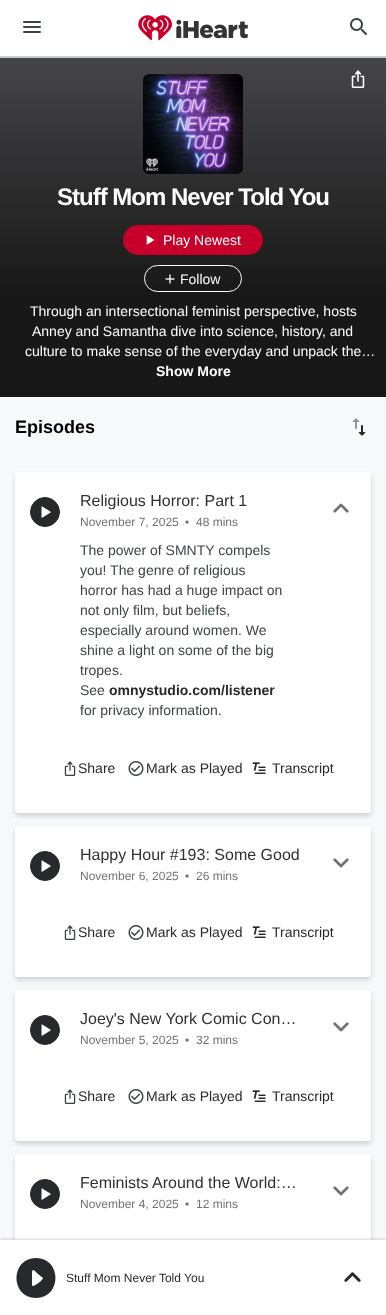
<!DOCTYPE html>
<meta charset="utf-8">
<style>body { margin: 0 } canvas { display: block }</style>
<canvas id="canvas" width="386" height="1315"></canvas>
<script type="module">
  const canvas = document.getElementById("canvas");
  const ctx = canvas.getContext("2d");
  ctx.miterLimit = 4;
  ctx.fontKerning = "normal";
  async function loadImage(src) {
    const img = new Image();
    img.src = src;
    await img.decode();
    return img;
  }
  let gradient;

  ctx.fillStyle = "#f6f8f9";
  ctx.fillRect(0, 0, 386, 1315);
  ctx.fillStyle = "#ffffff";
  ctx.fillRect(0, 0, 386, 56);
  ctx.fillStyle = "#c5cdd2";
  ctx.fillRect(0, 56, 386, 2);
  ctx.drawImage(await loadImage("img1.png"), 23, 21, 18, 12);
  ctx.drawImage(await loadImage("img2.png"), 138, 15, 110, 26);
  ctx.drawImage(await loadImage("img3.png"), 350, 18, 17, 17);
  gradient = ctx.createLinearGradient(193, 58, 193, 397);
  gradient.addColorStop(0, "#454548");
  gradient.addColorStop(0.7, "#181818");
  ctx.fillStyle = gradient;
  ctx.fillRect(0, 58, 386, 339);
  ctx.drawImage(await loadImage("img4.png"), 143, 74, 100, 100);
  ctx.letterSpacing = "-1px";
  ctx.font = "bold 24px Liberation Sans";
  ctx.fillStyle = "#ffffff";
  ctx.fillText("Stuff Mom Never Told You", 57, 205);
  ctx.fillStyle = "#c6002b";
  ctx.beginPath();
  ctx.roundRect(123, 225, 140, 30, 15);
  ctx.fill();
  ctx.drawImage(await loadImage("img5.png"), 146, 235, 9, 10);
  ctx.letterSpacing = "0px";
  ctx.font = "14px Liberation Sans";
  ctx.fillStyle = "#ffffff";
  ctx.fillText("Play Newest", 163, 245);
  ctx.drawImage(await loadImage("img6.png"), 351, 70, 14, 18);
  ctx.beginPath();
  ctx.roundRect(144.5, 265.5, 97, 26, 13);
  ctx.strokeStyle = "#ffffff";
  ctx.stroke();
  ctx.drawImage(await loadImage("img7.png"), 165, 274, 10, 10);
  ctx.fillText("Follow", 180, 284);
  ctx.fillText("Through an intersectional feminist perspective, hosts", 30, 316);
  ctx.fillText("Anney and Samantha dive into science, history, and", 32, 336);
  ctx.fillText("culture to make sense of the everyday and unpack the…", 25, 356);
  ctx.font = "bold 14px Liberation Sans";
  ctx.fillText("Show More", 156, 376);
  ctx.font = "bold 18px Liberation Sans";
  ctx.fillStyle = "#000000";
  ctx.fillText("Episodes", 15, 433);
  ctx.drawImage(await loadImage("img8.png"), 352, 418, 14, 18);
  ctx.fillStyle = "rgba(0, 0, 0, 0.15)";
  ctx.filter = "blur(2.5px)";
  ctx.beginPath();
  ctx.roundRect(15, 475, 356, 341, 3);
  ctx.fill();
  ctx.filter = "none";
  ctx.fillStyle = "#ffffff";
  ctx.beginPath();
  ctx.roundRect(15, 472, 356, 341, 3);
  ctx.fill();
  ctx.fillStyle = "#27292d";
  ctx.beginPath();
  ctx.arc(45, 512, 14.5, 0, Math.PI * 2);
  ctx.fill();
  ctx.strokeStyle = "#27292d";
  ctx.stroke();
  ctx.drawImage(await loadImage("img9.png"), 41, 506, 10, 12);
  ctx.font = "16px Liberation Sans";
  ctx.fillStyle = "#2f3133";
  ctx.fillText("Religious Horror: Part 1", 80, 506);
  ctx.font = "12px Liberation Sans";
  ctx.fillStyle = "#717277";
  ctx.fillText("November 7, 2025", 80, 526);
  ctx.fillText("•", 185, 526);
  ctx.fillText("48 mins", 196, 526);
  ctx.drawImage(await loadImage("img10.png"), 333, 503, 16, 10);
  ctx.font = "14px Liberation Sans";
  ctx.fillStyle = "#3f4447";
  ctx.fillText("The power of SMNTY compels", 80, 555);
  ctx.fillText("you! The genre of religious", 80, 575);
  ctx.fillText("horror has had a huge impact on", 80, 595);
  ctx.fillText("not only film, but beliefs,", 80, 615);
  ctx.fillText("especially around women. We", 80, 635);
  ctx.fillText("shine a light on some of the big", 80, 655);
  ctx.fillText("tropes.", 80, 675);
  ctx.fillText("See", 80, 695);
  ctx.font = "bold 14px Liberation Sans";
  ctx.fillStyle = "#27292d";
  ctx.fillText("omnystudio.com/listener", 109, 695);
  ctx.font = "14px Liberation Sans";
  ctx.fillStyle = "#3f4447";
  ctx.fillText("for privacy information.", 80, 715);
  ctx.drawImage(await loadImage("img11.png"), 64, 761, 12, 15);
  ctx.fillStyle = "#27292d";
  ctx.fillText("Share", 78, 773);
  ctx.drawImage(await loadImage("img12.png"), 128, 761, 16, 15);
  ctx.fillText("Mark as Played", 146, 773);
  ctx.drawImage(await loadImage("img13.png"), 252, 762, 14, 12);
  ctx.fillText("Transcript", 272, 773);
  ctx.fillStyle = "rgba(0, 0, 0, 0.15)";
  ctx.filter = "blur(2.5px)";
  ctx.beginPath();
  ctx.roundRect(15, 829, 356, 151, 3);
  ctx.fill();
  ctx.filter = "none";
  ctx.fillStyle = "#ffffff";
  ctx.beginPath();
  ctx.roundRect(15, 826, 356, 151, 3);
  ctx.fill();
  ctx.fillStyle = "#27292d";
  ctx.beginPath();
  ctx.arc(45, 866, 14.5, 0, Math.PI * 2);
  ctx.fill();
  ctx.stroke();
  ctx.drawImage(await loadImage("img9.png"), 41, 860, 10, 12);
  ctx.font = "16px Liberation Sans";
  ctx.fillStyle = "#2f3133";
  ctx.fillText("Happy Hour #193: Some Good", 80, 860);
  ctx.font = "12px Liberation Sans";
  ctx.fillStyle = "#717277";
  ctx.fillText("November 6, 2025", 80, 880);
  ctx.fillText("•", 185, 880);
  ctx.fillText("26 mins", 196, 880);
  ctx.drawImage(await loadImage("img14.png"), 333, 858, 16, 10);
  ctx.drawImage(await loadImage("img11.png"), 64, 925, 12, 15);
  ctx.font = "14px Liberation Sans";
  ctx.fillStyle = "#27292d";
  ctx.fillText("Share", 78, 937);
  ctx.drawImage(await loadImage("img12.png"), 128, 925, 16, 15);
  ctx.fillText("Mark as Played", 146, 937);
  ctx.drawImage(await loadImage("img13.png"), 252, 926, 14, 12);
  ctx.fillText("Transcript", 272, 937);
  ctx.fillStyle = "rgba(0, 0, 0, 0.15)";
  ctx.filter = "blur(2.5px)";
  ctx.beginPath();
  ctx.roundRect(15, 993, 356, 151, 3);
  ctx.fill();
  ctx.filter = "none";
  ctx.fillStyle = "#ffffff";
  ctx.beginPath();
  ctx.roundRect(15, 990, 356, 151, 3);
  ctx.fill();
  ctx.fillStyle = "#27292d";
  ctx.beginPath();
  ctx.arc(45, 1030, 14.5, 0, Math.PI * 2);
  ctx.fill();
  ctx.stroke();
  ctx.drawImage(await loadImage("img9.png"), 41, 1024, 10, 12);
  ctx.font = "16px Liberation Sans";
  ctx.fillStyle = "#2f3133";
  ctx.fillText("Joey's New York Comic Con…", 80, 1024);
  ctx.font = "12px Liberation Sans";
  ctx.fillStyle = "#717277";
  ctx.fillText("November 5, 2025", 80, 1044);
  ctx.fillText("•", 185, 1044);
  ctx.fillText("32 mins", 196, 1044);
  ctx.drawImage(await loadImage("img14.png"), 333, 1022, 16, 10);
  ctx.drawImage(await loadImage("img11.png"), 64, 1089, 12, 15);
  ctx.font = "14px Liberation Sans";
  ctx.fillStyle = "#27292d";
  ctx.fillText("Share", 78, 1101);
  ctx.drawImage(await loadImage("img12.png"), 128, 1089, 16, 15);
  ctx.fillText("Mark as Played", 146, 1101);
  ctx.drawImage(await loadImage("img13.png"), 252, 1090, 14, 12);
  ctx.fillText("Transcript", 272, 1101);
  ctx.fillStyle = "rgba(0, 0, 0, 0.15)";
  ctx.filter = "blur(2.5px)";
  ctx.beginPath();
  ctx.roundRect(15, 1157, 356, 151, 3);
  ctx.fill();
  ctx.filter = "none";
  ctx.fillStyle = "#ffffff";
  ctx.beginPath();
  ctx.roundRect(15, 1154, 356, 151, 3);
  ctx.fill();
  ctx.fillStyle = "#27292d";
  ctx.beginPath();
  ctx.arc(45, 1194, 14.5, 0, Math.PI * 2);
  ctx.fill();
  ctx.stroke();
  ctx.drawImage(await loadImage("img9.png"), 41, 1188, 10, 12);
  ctx.font = "16px Liberation Sans";
  ctx.fillStyle = "#2f3133";
  ctx.fillText("Feminists Around the World:…", 80, 1188);
  ctx.font = "12px Liberation Sans";
  ctx.fillStyle = "#717277";
  ctx.fillText("November 4, 2025", 80, 1208);
  ctx.fillText("•", 185, 1208);
  ctx.fillText("12 mins", 196, 1208);
  ctx.drawImage(await loadImage("img14.png"), 333, 1186, 16, 10);
  ctx.fillStyle = "rgba(0, 0, 0, 0.15)";
  ctx.filter = "blur(1.5px)";
  ctx.beginPath();
  ctx.rect(0, 1239, 386, 75);
  ctx.fill();
  ctx.filter = "none";
  ctx.fillStyle = "#ffffff";
  ctx.fillRect(0, 1240, 386, 75);
  ctx.fillStyle = "#27292d";
  ctx.beginPath();
  ctx.moveTo(36, 1258);
  ctx.bezierCurveTo(10, 1258, 10, 1298, 36, 1298);
  ctx.bezierCurveTo(62, 1298, 62, 1258, 36, 1258);
  ctx.closePath();
  ctx.moveTo(32, 1285);
  ctx.lineTo(32, 1273);
  ctx.bezierCurveTo(32, 1267, 35, 1271, 38, 1274);
  ctx.lineTo(43, 1278);
  ctx.bezierCurveTo(44, 1279, 32, 1289, 32, 1285);
  ctx.closePath();
  ctx.fill();
  ctx.fillText("Stuff Mom Never Told You", 66, 1282);
  ctx.drawImage(await loadImage("img15.png"), 344, 1272, 17, 10);
</script>
